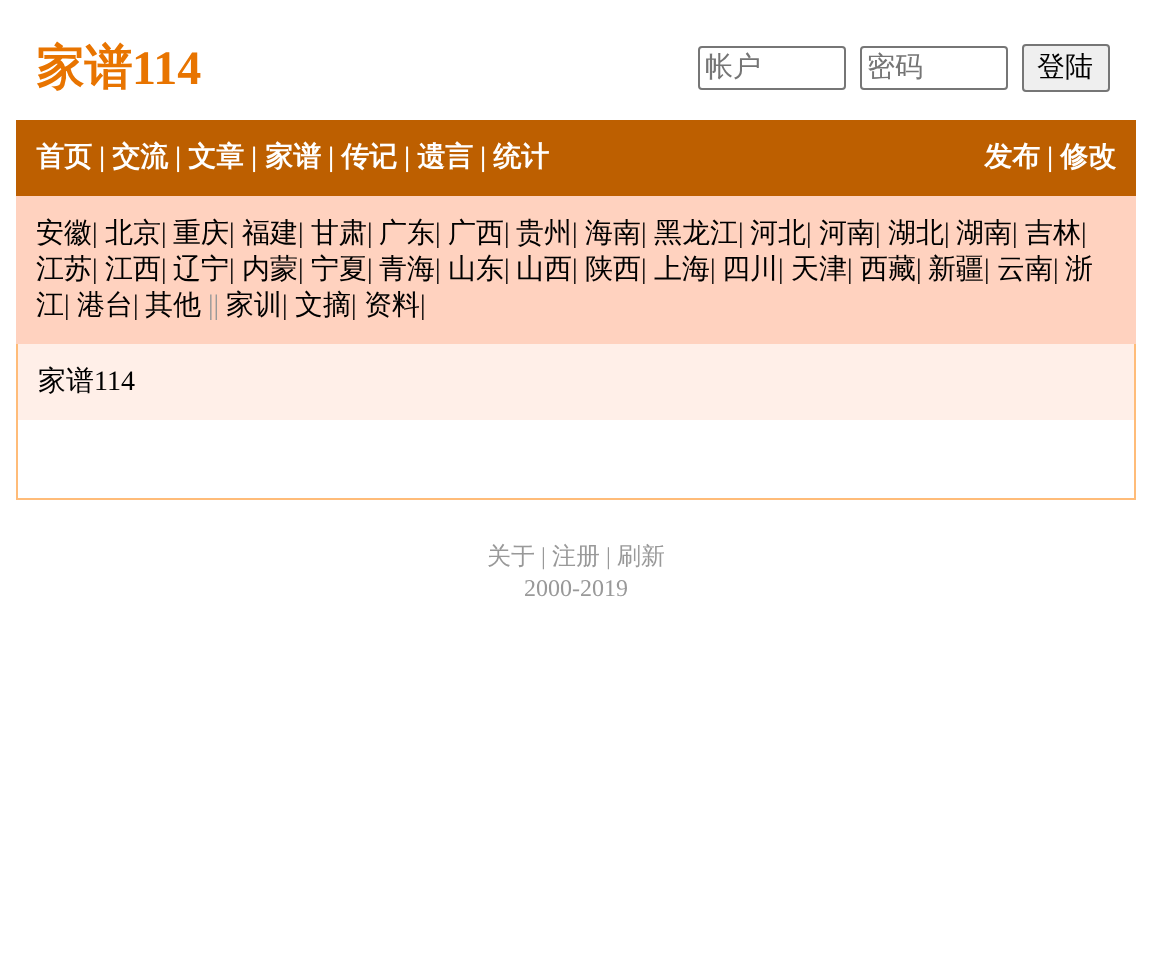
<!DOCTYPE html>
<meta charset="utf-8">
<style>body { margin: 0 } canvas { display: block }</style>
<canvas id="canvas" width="1151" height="976"></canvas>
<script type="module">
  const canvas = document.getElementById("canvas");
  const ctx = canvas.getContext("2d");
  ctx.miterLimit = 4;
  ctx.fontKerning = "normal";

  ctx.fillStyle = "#ffffff";
  ctx.fillRect(0, 0, 1151, 976);
  ctx.font = "bold 48px WenQuanYi Zen Hei";
  ctx.fillStyle = "#e87400";
  ctx.fillText("家谱", 36, 84);
  ctx.font = "bold 48px Liberation Serif";
  ctx.fillText("114", 132, 84);
  ctx.beginPath();
  ctx.roundRect(699, 47, 146, 42, 3);
  ctx.strokeStyle = "#767676";
  ctx.lineWidth = 2;
  ctx.stroke();
  ctx.font = "500 28px WenQuanYi Zen Hei";
  ctx.fillStyle = "#757575";
  ctx.fillText("帐户", 705, 76);
  ctx.beginPath();
  ctx.roundRect(861, 47, 146, 42, 3);
  ctx.stroke();
  ctx.fillText("密码", 867, 76);
  ctx.fillStyle = "#efefef";
  ctx.beginPath();
  ctx.roundRect(1023, 45, 86, 46, 3);
  ctx.fill();
  ctx.stroke();
  ctx.fillStyle = "#000000";
  ctx.fillText("登陆", 1037, 76);
  ctx.fillStyle = "#bd5f00";
  ctx.fillRect(16, 120, 1120, 76);
  ctx.font = "bold 28px WenQuanYi Zen Hei";
  ctx.fillStyle = "#ffffff";
  ctx.fillText("首页", 36, 166);
  ctx.font = "bold 28px Liberation Serif";
  ctx.fillText("|", 99, 166);
  ctx.font = "bold 28px WenQuanYi Zen Hei";
  ctx.fillText("交流", 112, 166);
  ctx.font = "bold 28px Liberation Serif";
  ctx.fillText("|", 175, 166);
  ctx.font = "bold 28px WenQuanYi Zen Hei";
  ctx.fillText("文章", 188, 166);
  ctx.font = "bold 28px Liberation Serif";
  ctx.fillText("|", 251, 166);
  ctx.font = "bold 28px WenQuanYi Zen Hei";
  ctx.fillText("家谱", 265, 166);
  ctx.font = "bold 28px Liberation Serif";
  ctx.fillText("|", 328, 166);
  ctx.font = "bold 28px WenQuanYi Zen Hei";
  ctx.fillText("传记", 341, 166);
  ctx.font = "bold 28px Liberation Serif";
  ctx.fillText("|", 404, 166);
  ctx.font = "bold 28px WenQuanYi Zen Hei";
  ctx.fillText("遗言", 417, 166);
  ctx.font = "bold 28px Liberation Serif";
  ctx.fillText("|", 480, 166);
  ctx.font = "bold 28px WenQuanYi Zen Hei";
  ctx.fillText("统计", 493, 166);
  ctx.fillText("发布", 984, 166);
  ctx.font = "bold 28px Liberation Serif";
  ctx.fillText("|", 1047, 166);
  ctx.font = "bold 28px WenQuanYi Zen Hei";
  ctx.fillText("修改", 1060, 166);
  ctx.fillStyle = "#ffd2bf";
  ctx.fillRect(16, 196, 1120, 148);
  ctx.font = "500 28px WenQuanYi Zen Hei";
  ctx.fillStyle = "#000000";
  ctx.fillText("安徽", 36, 242);
  ctx.font = "28px Liberation Serif";
  ctx.fillText("|", 92, 242);
  ctx.font = "500 28px WenQuanYi Zen Hei";
  ctx.fillText("北京", 105, 242);
  ctx.font = "28px Liberation Serif";
  ctx.fillText("|", 161, 242);
  ctx.font = "500 28px WenQuanYi Zen Hei";
  ctx.fillText("重庆", 173, 242);
  ctx.font = "28px Liberation Serif";
  ctx.fillText("|", 229, 242);
  ctx.font = "500 28px WenQuanYi Zen Hei";
  ctx.fillText("福建", 242, 242);
  ctx.font = "28px Liberation Serif";
  ctx.fillText("|", 298, 242);
  ctx.font = "500 28px WenQuanYi Zen Hei";
  ctx.fillText("甘肃", 311, 242);
  ctx.font = "28px Liberation Serif";
  ctx.fillText("|", 367, 242);
  ctx.font = "500 28px WenQuanYi Zen Hei";
  ctx.fillText("广东", 379, 242);
  ctx.font = "28px Liberation Serif";
  ctx.fillText("|", 435, 242);
  ctx.font = "500 28px WenQuanYi Zen Hei";
  ctx.fillText("广西", 448, 242);
  ctx.font = "28px Liberation Serif";
  ctx.fillText("|", 504, 242);
  ctx.font = "500 28px WenQuanYi Zen Hei";
  ctx.fillText("贵州", 516, 242);
  ctx.font = "28px Liberation Serif";
  ctx.fillText("|", 572, 242);
  ctx.font = "500 28px WenQuanYi Zen Hei";
  ctx.fillText("海南", 585, 242);
  ctx.font = "28px Liberation Serif";
  ctx.fillText("|", 641, 242);
  ctx.font = "500 28px WenQuanYi Zen Hei";
  ctx.fillText("黑龙江", 654, 242);
  ctx.font = "28px Liberation Serif";
  ctx.fillText("|", 738, 242);
  ctx.font = "500 28px WenQuanYi Zen Hei";
  ctx.fillText("河北", 750, 242);
  ctx.font = "28px Liberation Serif";
  ctx.fillText("|", 806, 242);
  ctx.font = "500 28px WenQuanYi Zen Hei";
  ctx.fillText("河南", 819, 242);
  ctx.font = "28px Liberation Serif";
  ctx.fillText("|", 875, 242);
  ctx.font = "500 28px WenQuanYi Zen Hei";
  ctx.fillText("湖北", 888, 242);
  ctx.font = "28px Liberation Serif";
  ctx.fillText("|", 944, 242);
  ctx.font = "500 28px WenQuanYi Zen Hei";
  ctx.fillText("湖南", 956, 242);
  ctx.font = "28px Liberation Serif";
  ctx.fillText("|", 1012, 242);
  ctx.font = "500 28px WenQuanYi Zen Hei";
  ctx.fillText("吉林", 1025, 242);
  ctx.font = "28px Liberation Serif";
  ctx.fillText("|", 1081, 242);
  ctx.font = "500 28px WenQuanYi Zen Hei";
  ctx.fillText("江苏", 36, 278);
  ctx.font = "28px Liberation Serif";
  ctx.fillText("|", 92, 278);
  ctx.font = "500 28px WenQuanYi Zen Hei";
  ctx.fillText("江西", 105, 278);
  ctx.font = "28px Liberation Serif";
  ctx.fillText("|", 161, 278);
  ctx.font = "500 28px WenQuanYi Zen Hei";
  ctx.fillText("辽宁", 173, 278);
  ctx.font = "28px Liberation Serif";
  ctx.fillText("|", 229, 278);
  ctx.font = "500 28px WenQuanYi Zen Hei";
  ctx.fillText("内蒙", 242, 278);
  ctx.font = "28px Liberation Serif";
  ctx.fillText("|", 298, 278);
  ctx.font = "500 28px WenQuanYi Zen Hei";
  ctx.fillText("宁夏", 311, 278);
  ctx.font = "28px Liberation Serif";
  ctx.fillText("|", 367, 278);
  ctx.font = "500 28px WenQuanYi Zen Hei";
  ctx.fillText("青海", 379, 278);
  ctx.font = "28px Liberation Serif";
  ctx.fillText("|", 435, 278);
  ctx.font = "500 28px WenQuanYi Zen Hei";
  ctx.fillText("山东", 448, 278);
  ctx.font = "28px Liberation Serif";
  ctx.fillText("|", 504, 278);
  ctx.font = "500 28px WenQuanYi Zen Hei";
  ctx.fillText("山西", 516, 278);
  ctx.font = "28px Liberation Serif";
  ctx.fillText("|", 572, 278);
  ctx.font = "500 28px WenQuanYi Zen Hei";
  ctx.fillText("陕西", 585, 278);
  ctx.font = "28px Liberation Serif";
  ctx.fillText("|", 641, 278);
  ctx.font = "500 28px WenQuanYi Zen Hei";
  ctx.fillText("上海", 654, 278);
  ctx.font = "28px Liberation Serif";
  ctx.fillText("|", 710, 278);
  ctx.font = "500 28px WenQuanYi Zen Hei";
  ctx.fillText("四川", 722, 278);
  ctx.font = "28px Liberation Serif";
  ctx.fillText("|", 778, 278);
  ctx.font = "500 28px WenQuanYi Zen Hei";
  ctx.fillText("天津", 791, 278);
  ctx.font = "28px Liberation Serif";
  ctx.fillText("|", 847, 278);
  ctx.font = "500 28px WenQuanYi Zen Hei";
  ctx.fillText("西藏", 860, 278);
  ctx.font = "28px Liberation Serif";
  ctx.fillText("|", 916, 278);
  ctx.font = "500 28px WenQuanYi Zen Hei";
  ctx.fillText("新疆", 928, 278);
  ctx.font = "28px Liberation Serif";
  ctx.fillText("|", 984, 278);
  ctx.font = "500 28px WenQuanYi Zen Hei";
  ctx.fillText("云南", 997, 278);
  ctx.font = "28px Liberation Serif";
  ctx.fillText("|", 1053, 278);
  ctx.font = "500 28px WenQuanYi Zen Hei";
  ctx.fillText("浙", 1065, 278);
  ctx.fillText("江", 36, 314);
  ctx.font = "28px Liberation Serif";
  ctx.fillText("|", 64, 314);
  ctx.font = "500 28px WenQuanYi Zen Hei";
  ctx.fillText("港台", 77, 314);
  ctx.font = "28px Liberation Serif";
  ctx.fillText("|", 133, 314);
  ctx.font = "500 28px WenQuanYi Zen Hei";
  ctx.fillText("其他", 145, 314);
  ctx.font = "28px Liberation Serif";
  ctx.fillStyle = "#999999";
  ctx.fillText("||", 208, 314);
  ctx.font = "500 28px WenQuanYi Zen Hei";
  ctx.fillStyle = "#000000";
  ctx.fillText("家训", 226, 314);
  ctx.font = "28px Liberation Serif";
  ctx.fillText("|", 282, 314);
  ctx.font = "500 28px WenQuanYi Zen Hei";
  ctx.fillText("文摘", 295, 314);
  ctx.font = "28px Liberation Serif";
  ctx.fillText("|", 351, 314);
  ctx.font = "500 28px WenQuanYi Zen Hei";
  ctx.fillText("资料", 364, 314);
  ctx.font = "28px Liberation Serif";
  ctx.fillText("|", 420, 314);
  ctx.fillStyle = "#ffbc79";
  ctx.fillRect(1134, 344, 2, 156);
  ctx.fillRect(16, 498, 1120, 2);
  ctx.fillRect(16, 344, 2, 156);
  ctx.fillStyle = "#ffefe8";
  ctx.fillRect(18, 344, 1116, 76);
  ctx.font = "500 28px WenQuanYi Zen Hei";
  ctx.fillStyle = "#000000";
  ctx.fillText("家谱", 38, 390);
  ctx.font = "28px Liberation Serif";
  ctx.fillText("114", 94, 390);
  ctx.font = "500 24px WenQuanYi Zen Hei";
  ctx.fillStyle = "#999999";
  ctx.fillText("关于", 487, 564);
  ctx.font = "24px Liberation Serif";
  ctx.fillText("|", 541, 564);
  ctx.font = "500 24px WenQuanYi Zen Hei";
  ctx.fillText("注册", 552, 564);
  ctx.font = "24px Liberation Serif";
  ctx.fillText("|", 606, 564);
  ctx.font = "500 24px WenQuanYi Zen Hei";
  ctx.fillText("刷新", 617, 564);
  ctx.font = "24px Liberation Serif";
  ctx.fillText("2000-2019", 524, 596);
</script>
